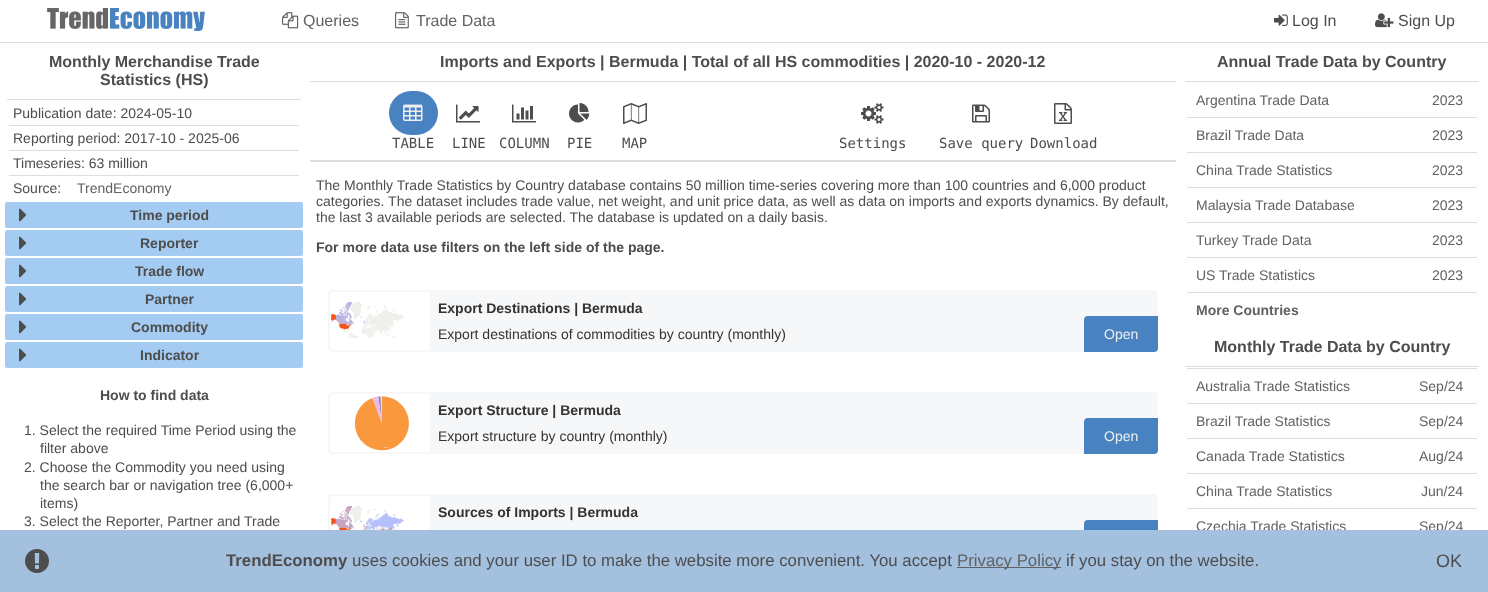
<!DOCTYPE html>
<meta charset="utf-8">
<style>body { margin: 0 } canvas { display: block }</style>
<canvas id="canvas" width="1488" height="592"></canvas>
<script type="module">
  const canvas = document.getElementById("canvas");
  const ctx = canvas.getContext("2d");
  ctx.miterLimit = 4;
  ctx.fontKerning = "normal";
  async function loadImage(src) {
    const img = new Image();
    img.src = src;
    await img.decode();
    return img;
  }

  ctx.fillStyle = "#ffffff";
  ctx.fillRect(0, 0, 1488, 592);
  ctx.fillStyle = "#dddddd";
  ctx.fillRect(0, 42, 1488, 1);
  ctx.drawImage(await loadImage("img1.png"), 47, 8, 158, 23);
  ctx.drawImage(await loadImage("img2.png"), 282, 12, 17, 17);
  ctx.font = "16px Liberation Sans";
  ctx.fillStyle = "#616161";
  ctx.fillText("Queries", 303, 26);
  ctx.drawImage(await loadImage("img3.png"), 395, 12, 14, 17);
  ctx.fillText("Trade Data", 416, 26);
  ctx.drawImage(await loadImage("img4.png"), 1274, 14, 14, 12);
  ctx.fillStyle = "#4e4d4d";
  ctx.fillText("Log In", 1292, 26);
  ctx.drawImage(await loadImage("img5.png"), 1375, 13, 19, 15);
  ctx.fillText("Sign Up", 1398, 26);
  ctx.fillStyle = "#dddddd";
  ctx.fillRect(7, 99, 294, 1);
  ctx.font = "bold 16px Liberation Sans";
  ctx.fillStyle = "#4e4d4d";
  ctx.fillText("Monthly Merchandise Trade", 49, 67);
  ctx.fillText("Statistics (HS)", 100, 85);
  ctx.font = "14px Liberation Sans";
  ctx.fillText("Publication date: 2024-05-10", 13, 118);
  ctx.fillStyle = "#dddddd";
  ctx.fillRect(9, 125, 290, 1);
  ctx.fillStyle = "#4e4d4d";
  ctx.fillText("Reporting period: 2017-10 - 2025-06", 13, 143);
  ctx.fillStyle = "#dddddd";
  ctx.fillRect(9, 150, 290, 1);
  ctx.fillStyle = "#4e4d4d";
  ctx.fillText("Timeseries: 63 million", 13, 168);
  ctx.fillStyle = "#dddddd";
  ctx.fillRect(9, 175, 290, 1);
  ctx.fillStyle = "#4e4d4d";
  ctx.fillText("Source:", 13, 193);
  ctx.fillStyle = "#616161";
  ctx.fillText("TrendEconomy", 77, 193);
  ctx.fillStyle = "#a4ccf2";
  ctx.beginPath();
  ctx.roundRect(5, 202, 298, 26, 2);
  ctx.fill();
  ctx.drawImage(await loadImage("img6.png"), 19, 208, 8, 14);
  ctx.font = "bold 14px Liberation Sans";
  ctx.fillStyle = "#4e4d4d";
  ctx.fillText("Time period", 130, 220);
  ctx.fillStyle = "#a4ccf2";
  ctx.beginPath();
  ctx.roundRect(5, 230, 298, 26, 2);
  ctx.fill();
  ctx.drawImage(await loadImage("img6.png"), 19, 236, 8, 14);
  ctx.fillStyle = "#4e4d4d";
  ctx.fillText("Reporter", 140, 248);
  ctx.fillStyle = "#a4ccf2";
  ctx.beginPath();
  ctx.roundRect(5, 258, 298, 26, 2);
  ctx.fill();
  ctx.drawImage(await loadImage("img6.png"), 19, 264, 8, 14);
  ctx.fillStyle = "#4e4d4d";
  ctx.fillText("Trade flow", 135, 276);
  ctx.fillStyle = "#a4ccf2";
  ctx.beginPath();
  ctx.roundRect(5, 286, 298, 26, 2);
  ctx.fill();
  ctx.drawImage(await loadImage("img6.png"), 19, 292, 8, 14);
  ctx.fillStyle = "#4e4d4d";
  ctx.fillText("Partner", 145, 304);
  ctx.fillStyle = "#a4ccf2";
  ctx.beginPath();
  ctx.roundRect(5, 314, 298, 26, 2);
  ctx.fill();
  ctx.drawImage(await loadImage("img6.png"), 19, 320, 8, 14);
  ctx.fillStyle = "#4e4d4d";
  ctx.fillText("Commodity", 131, 332);
  ctx.fillStyle = "#a4ccf2";
  ctx.beginPath();
  ctx.roundRect(5, 342, 298, 26, 2);
  ctx.fill();
  ctx.drawImage(await loadImage("img6.png"), 19, 348, 8, 14);
  ctx.fillStyle = "#4e4d4d";
  ctx.fillText("Indicator", 140, 360);
  ctx.fillText("How to find data", 100, 400);
  ctx.font = "14px Liberation Sans";
  ctx.fillText("1. Select the required Time Period using the", 24, 435);
  ctx.fillText("filter above", 40, 453);
  ctx.fillText("2. Choose the Commodity you need using", 24, 472);
  ctx.fillText("the search bar or navigation tree (6,000+", 40, 490);
  ctx.fillText("items)", 40, 508);
  ctx.fillText("3. Select the Reporter, Partner and Trade", 24, 526);
  ctx.fillStyle = "#dddddd";
  ctx.fillRect(310, 81, 866, 1);
  ctx.font = "bold 16px Liberation Sans";
  ctx.fillStyle = "#4e4d4d";
  ctx.fillText("Imports and Exports | Bermuda | Total of all HS commodities | 2020-10 - 2020-12", 440, 67);
  ctx.fillStyle = "#4882c0";
  ctx.beginPath();
  ctx.roundRect(389, 91, 49, 44, 22);
  ctx.fill();
  ctx.drawImage(await loadImage("img7.png"), 403, 104, 20, 17);
  ctx.font = "14px DejaVu Sans Mono";
  ctx.fillStyle = "#4e4d4d";
  ctx.fillText("TABLE", 392, 148);
  ctx.drawImage(await loadImage("img8.png"), 456, 104, 24, 19);
  ctx.fillText("LINE", 452, 148);
  ctx.drawImage(await loadImage("img9.png"), 512, 104, 24, 19);
  ctx.fillText("COLUMN", 499, 148);
  ctx.drawImage(await loadImage("img10.png"), 569, 103, 21, 20);
  ctx.fillText("PIE", 567, 148);
  ctx.drawImage(await loadImage("img11.png"), 623, 103, 24, 21);
  ctx.fillText("MAP", 622, 148);
  ctx.drawImage(await loadImage("img12.png"), 861, 103, 23, 21);
  ctx.fillText("Settings", 839, 148);
  ctx.drawImage(await loadImage("img13.png"), 972, 104, 18, 19);
  ctx.fillText("Save query", 939, 148);
  ctx.drawImage(await loadImage("img14.png"), 1054, 103, 18, 21);
  ctx.fillText("Download", 1030, 148);
  ctx.fillStyle = "#dddddd";
  ctx.beginPath();
  ctx.roundRect(310, 160, 866, 2, 1);
  ctx.fill();
  ctx.font = "14px Liberation Sans";
  ctx.fillStyle = "#4e4d4d";
  ctx.fillText("The Monthly Trade Statistics by Country database contains 50 million time-series covering more than 100 countries and 6,000 product", 316, 190);
  ctx.fillText("categories. The dataset includes trade value, net weight, and unit price data, as well as data on imports and exports dynamics. By default,", 316, 206);
  ctx.fillText("the last 3 available periods are selected. The database is updated on a daily basis.", 316, 222);
  ctx.font = "bold 14px Liberation Sans";
  ctx.fillText("For more data use filters on the left side of the page.", 316, 252);
  ctx.fillStyle = "#f6f7f8";
  ctx.beginPath();
  ctx.roundRect(328, 290, 830, 62, 4);
  ctx.fill();
  ctx.fillStyle = "#ffffff";
  ctx.beginPath();
  ctx.roundRect(330, 292, 100, 58, [4, 0, 0, 4]);
  ctx.fill();
  ctx.drawImage(await loadImage("img15.png"), 331, 302, 73, 36);
  ctx.fillStyle = "#333333";
  ctx.fillText("Export Destinations | Bermuda", 438, 313);
  ctx.font = "14px Liberation Sans";
  ctx.fillText("Export destinations of commodities by country (monthly)", 438, 339);
  ctx.fillStyle = "#4882c0";
  ctx.beginPath();
  ctx.roundRect(1084, 316, 74, 36, [4, 0, 4, 0]);
  ctx.fill();
  ctx.fillStyle = "#eeeeee";
  ctx.fillText("Open", 1104, 339);
  ctx.fillStyle = "#f6f7f8";
  ctx.beginPath();
  ctx.roundRect(328, 392, 830, 62, 4);
  ctx.fill();
  ctx.fillStyle = "#ffffff";
  ctx.beginPath();
  ctx.roundRect(330, 394, 100, 58, [4, 0, 0, 4]);
  ctx.fill();
  ctx.drawImage(await loadImage("img16.png"), 354, 396, 55, 55);
  ctx.font = "bold 14px Liberation Sans";
  ctx.fillStyle = "#333333";
  ctx.fillText("Export Structure | Bermuda", 438, 415);
  ctx.font = "14px Liberation Sans";
  ctx.fillText("Export structure by country (monthly)", 438, 441);
  ctx.fillStyle = "#4882c0";
  ctx.beginPath();
  ctx.roundRect(1084, 418, 74, 36, [4, 0, 4, 0]);
  ctx.fill();
  ctx.fillStyle = "#eeeeee";
  ctx.fillText("Open", 1104, 441);
  ctx.fillStyle = "#f6f7f8";
  ctx.beginPath();
  ctx.roundRect(328, 494, 830, 62, 4);
  ctx.fill();
  ctx.fillStyle = "#ffffff";
  ctx.beginPath();
  ctx.roundRect(330, 496, 100, 58, [4, 0, 0, 4]);
  ctx.fill();
  ctx.drawImage(await loadImage("img17.png"), 331, 506, 73, 24);
  ctx.font = "bold 14px Liberation Sans";
  ctx.fillStyle = "#333333";
  ctx.fillText("Sources of Imports | Bermuda", 438, 517);
  ctx.fillStyle = "#4882c0";
  ctx.beginPath();
  ctx.roundRect(1084, 520, 74, 36, [4, 0, 4, 0]);
  ctx.fill();
  ctx.fillStyle = "#dddddd";
  ctx.fillRect(1185, 81, 294, 1);
  ctx.font = "bold 16px Liberation Sans";
  ctx.fillStyle = "#4e4d4d";
  ctx.fillText("Annual Trade Data by Country", 1217, 67);
  ctx.font = "14px Liberation Sans";
  ctx.fillStyle = "#616161";
  ctx.fillText("Argentina Trade Data", 1196, 105);
  ctx.fillText("2023", 1432, 105);
  ctx.fillStyle = "#dddddd";
  ctx.fillRect(1187, 117, 290, 1);
  ctx.fillStyle = "#616161";
  ctx.fillText("Brazil Trade Data", 1196, 140);
  ctx.fillText("2023", 1432, 140);
  ctx.fillStyle = "#dddddd";
  ctx.fillRect(1187, 152, 290, 1);
  ctx.fillStyle = "#616161";
  ctx.fillText("China Trade Statistics", 1196, 175);
  ctx.fillText("2023", 1432, 175);
  ctx.fillStyle = "#dddddd";
  ctx.fillRect(1187, 187, 290, 1);
  ctx.fillStyle = "#616161";
  ctx.fillText("Malaysia Trade Database", 1196, 210);
  ctx.fillText("2023", 1432, 210);
  ctx.fillStyle = "#dddddd";
  ctx.fillRect(1187, 222, 290, 1);
  ctx.fillStyle = "#616161";
  ctx.fillText("Turkey Trade Data", 1196, 245);
  ctx.fillText("2023", 1432, 245);
  ctx.fillStyle = "#dddddd";
  ctx.fillRect(1187, 257, 290, 1);
  ctx.fillStyle = "#616161";
  ctx.fillText("US Trade Statistics", 1196, 280);
  ctx.fillText("2023", 1432, 280);
  ctx.fillStyle = "#dddddd";
  ctx.fillRect(1187, 292, 290, 1);
  ctx.font = "bold 14px Liberation Sans";
  ctx.fillStyle = "#616161";
  ctx.fillText("More Countries", 1196, 315);
  ctx.fillStyle = "#dddddd";
  ctx.fillRect(1185, 366, 294, 1);
  ctx.font = "bold 16px Liberation Sans";
  ctx.fillStyle = "#4e4d4d";
  ctx.fillText("Monthly Trade Data by Country", 1214, 352);
  ctx.fillStyle = "#dddddd";
  ctx.fillRect(1187, 368, 290, 1);
  ctx.font = "14px Liberation Sans";
  ctx.fillStyle = "#616161";
  ctx.fillText("Australia Trade Statistics", 1196, 391);
  ctx.fillText("Sep/24", 1419, 391);
  ctx.fillStyle = "#dddddd";
  ctx.fillRect(1187, 403, 290, 1);
  ctx.fillStyle = "#616161";
  ctx.fillText("Brazil Trade Statistics", 1196, 426);
  ctx.fillText("Sep/24", 1419, 426);
  ctx.fillStyle = "#dddddd";
  ctx.fillRect(1187, 438, 290, 1);
  ctx.fillStyle = "#616161";
  ctx.fillText("Canada Trade Statistics", 1196, 461);
  ctx.fillText("Aug/24", 1419, 461);
  ctx.fillStyle = "#dddddd";
  ctx.fillRect(1187, 473, 290, 1);
  ctx.fillStyle = "#616161";
  ctx.fillText("China Trade Statistics", 1196, 496);
  ctx.fillText("Jun/24", 1421, 496);
  ctx.fillStyle = "#dddddd";
  ctx.fillRect(1187, 508, 290, 1);
  ctx.fillStyle = "#616161";
  ctx.fillText("Czechia Trade Statistics", 1196, 531);
  ctx.fillText("Sep/24", 1419, 531);
  ctx.fillStyle = "#a3c0df";
  ctx.fillRect(0, 530, 1488, 62);
  ctx.drawImage(await loadImage("img18.png"), 25, 549, 24, 24);
  ctx.font = "bold 16.8px Liberation Sans";
  ctx.fillStyle = "#4e4d4d";
  ctx.fillText("TrendEconomy", 226, 566);
  ctx.font = "16.8px Liberation Sans";
  ctx.fillText("uses cookies and your user ID to make the website more convenient. You accept", 352, 566);
  ctx.fillStyle = "#616161";
  ctx.fillRect(957, 567, 104, 1);
  ctx.fillText("Privacy Policy", 957, 566);
  ctx.fillStyle = "#4e4d4d";
  ctx.fillText("if you stay on the website.", 1066, 566);
  ctx.font = "18px Liberation Sans";
  ctx.fillText("OK", 1436, 567);
</script>
